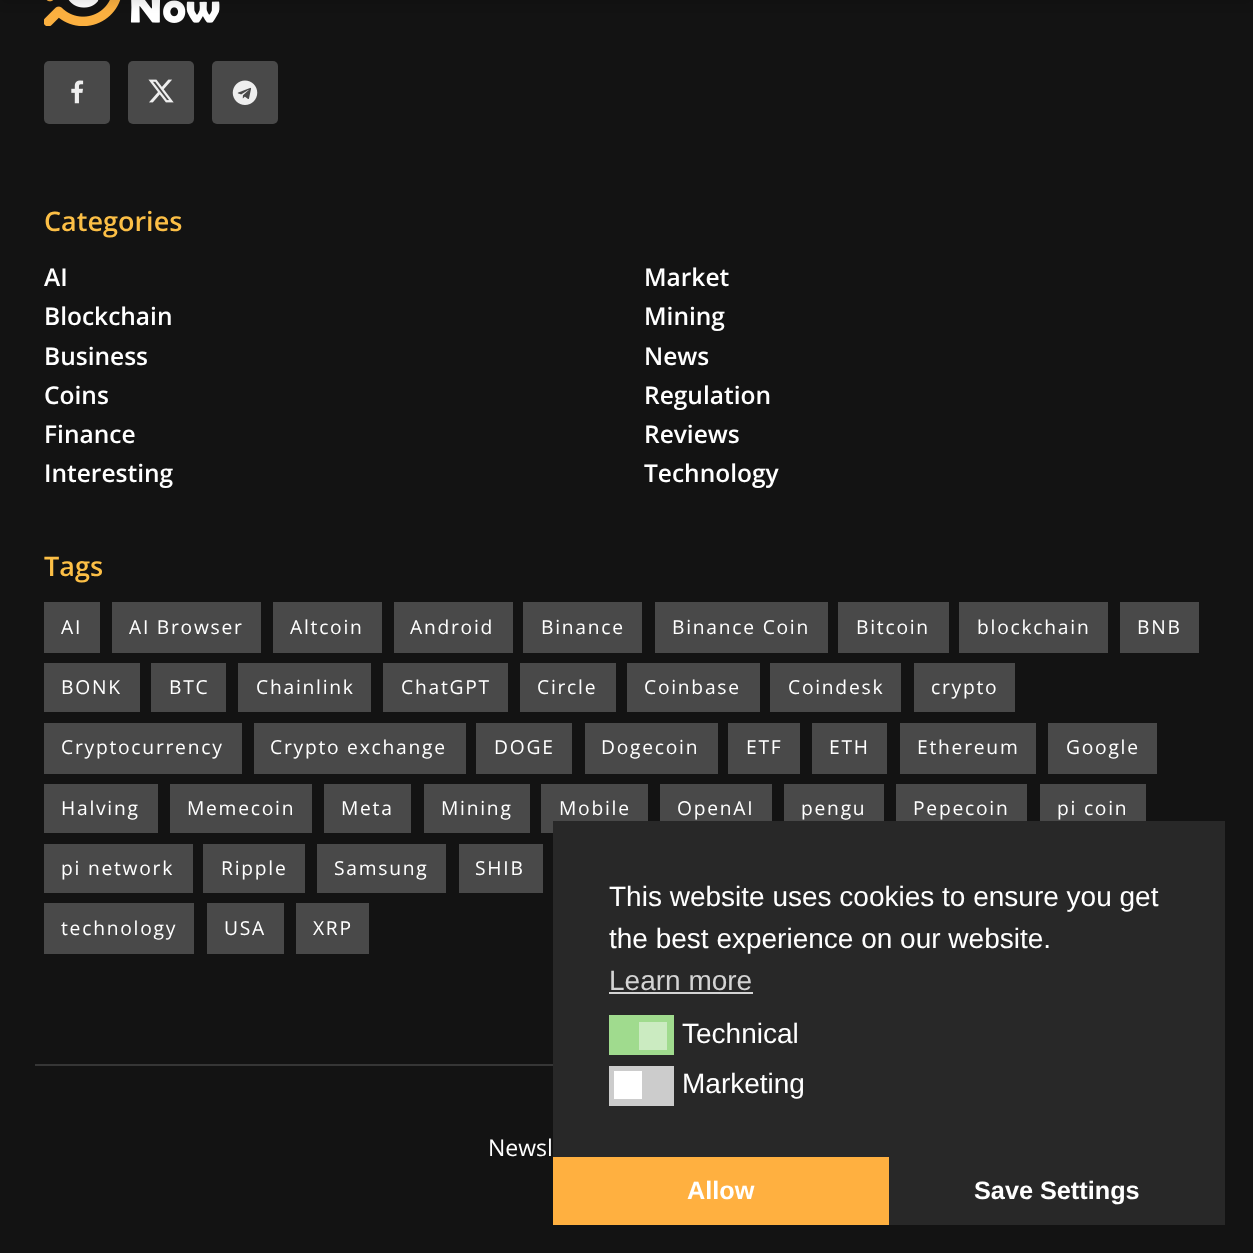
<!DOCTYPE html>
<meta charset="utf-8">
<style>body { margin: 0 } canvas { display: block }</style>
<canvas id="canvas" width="1253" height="1253"></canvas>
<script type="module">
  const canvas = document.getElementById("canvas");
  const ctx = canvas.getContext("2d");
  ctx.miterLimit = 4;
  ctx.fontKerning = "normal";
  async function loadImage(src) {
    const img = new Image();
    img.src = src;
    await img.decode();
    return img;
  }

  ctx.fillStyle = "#131313";
  ctx.fillRect(0, 0, 1253, 1253);
  ctx.drawImage(await loadImage("img1.png"), 44, 0, 176, 26);
  ctx.fillStyle = "rgba(0, 0, 0, 0.1)";
  ctx.filter = "blur(5px)";
  ctx.beginPath();
  ctx.rect(0, -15, 1253, 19);
  ctx.fill();
  ctx.filter = "none";
  ctx.fillStyle = "#494949";
  ctx.beginPath();
  ctx.roundRect(44, 61, 66, 63, 5);
  ctx.fill();
  ctx.drawImage(await loadImage("img2.png"), 71, 80, 13, 24);
  ctx.beginPath();
  ctx.roundRect(128, 61, 66, 63, 5);
  ctx.fill();
  ctx.drawImage(await loadImage("img3.png"), 148, 79, 26, 24);
  ctx.beginPath();
  ctx.roundRect(212, 61, 66, 63, 5);
  ctx.fill();
  ctx.drawImage(await loadImage("img4.png"), 232, 80, 26, 25);
  ctx.font = "600 27px Open Sans";
  ctx.fillStyle = "#fcbf46";
  ctx.fillText("Categories", 44, 231);
  ctx.font = "600 24.5px Open Sans";
  ctx.fillStyle = "#ffffff";
  ctx.fillText("AI", 44, 286);
  ctx.fillText("Market", 644, 286);
  ctx.fillText("Blockchain", 44, 325);
  ctx.fillText("Mining", 644, 325);
  ctx.fillText("Business", 44, 365);
  ctx.fillText("News", 644, 365);
  ctx.fillText("Coins", 44, 404);
  ctx.fillText("Regulation", 644, 404);
  ctx.fillText("Finance", 44, 443);
  ctx.fillText("Reviews", 644, 443);
  ctx.fillText("Interesting", 44, 482);
  ctx.fillText("Technology", 644, 482);
  ctx.font = "600 27px Open Sans";
  ctx.fillStyle = "#fcbf46";
  ctx.fillText("Tags", 44, 576);
  ctx.fillStyle = "#494949";
  ctx.fillRect(44, 602, 56, 51);
  ctx.letterSpacing = "1.75px";
  ctx.font = "19.25px Open Sans";
  ctx.fillStyle = "#ffffff";
  ctx.fillText("AI", 61, 634);
  ctx.fillStyle = "#494949";
  ctx.fillRect(112, 602, 149, 51);
  ctx.fillStyle = "#ffffff";
  ctx.fillText("AI Browser", 129, 634);
  ctx.fillStyle = "#494949";
  ctx.fillRect(273, 602, 109, 51);
  ctx.fillStyle = "#ffffff";
  ctx.fillText("Altcoin", 290, 634);
  ctx.fillStyle = "#494949";
  ctx.fillRect(394, 602, 119, 51);
  ctx.fillStyle = "#ffffff";
  ctx.fillText("Android", 410, 634);
  ctx.fillStyle = "#494949";
  ctx.fillRect(523, 602, 119, 51);
  ctx.fillStyle = "#ffffff";
  ctx.fillText("Binance", 541, 634);
  ctx.fillStyle = "#494949";
  ctx.fillRect(655, 602, 173, 51);
  ctx.fillStyle = "#ffffff";
  ctx.fillText("Binance Coin", 672, 634);
  ctx.fillStyle = "#494949";
  ctx.fillRect(838, 602, 111, 51);
  ctx.fillStyle = "#ffffff";
  ctx.fillText("Bitcoin", 856, 634);
  ctx.fillStyle = "#494949";
  ctx.fillRect(959, 602, 149, 51);
  ctx.fillStyle = "#ffffff";
  ctx.fillText("blockchain", 977, 634);
  ctx.fillStyle = "#494949";
  ctx.fillRect(1120, 602, 79, 51);
  ctx.fillStyle = "#ffffff";
  ctx.fillText("BNB", 1137, 634);
  ctx.fillStyle = "#494949";
  ctx.fillRect(44, 663, 96, 49);
  ctx.fillStyle = "#ffffff";
  ctx.fillText("BONK", 61, 694);
  ctx.fillStyle = "#494949";
  ctx.fillRect(151, 663, 75, 49);
  ctx.fillStyle = "#ffffff";
  ctx.fillText("BTC", 169, 694);
  ctx.fillStyle = "#494949";
  ctx.fillRect(238, 663, 133, 49);
  ctx.fillStyle = "#ffffff";
  ctx.fillText("Chainlink", 256, 694);
  ctx.fillStyle = "#494949";
  ctx.fillRect(383, 663, 125, 49);
  ctx.fillStyle = "#ffffff";
  ctx.fillText("ChatGPT", 401, 694);
  ctx.fillStyle = "#494949";
  ctx.fillRect(520, 663, 96, 49);
  ctx.fillStyle = "#ffffff";
  ctx.fillText("Circle", 537, 694);
  ctx.fillStyle = "#494949";
  ctx.fillRect(627, 663, 133, 49);
  ctx.fillStyle = "#ffffff";
  ctx.fillText("Coinbase", 644, 694);
  ctx.fillStyle = "#494949";
  ctx.fillRect(770, 663, 131, 49);
  ctx.fillStyle = "#ffffff";
  ctx.fillText("Coindesk", 788, 694);
  ctx.fillStyle = "#494949";
  ctx.fillRect(914, 663, 101, 49);
  ctx.fillStyle = "#ffffff";
  ctx.fillText("crypto", 931, 694);
  ctx.fillStyle = "#494949";
  ctx.fillRect(44, 723, 198, 51);
  ctx.fillStyle = "#ffffff";
  ctx.fillText("Cryptocurrency", 61, 754);
  ctx.fillStyle = "#494949";
  ctx.fillRect(254, 723, 212, 51);
  ctx.fillStyle = "#ffffff";
  ctx.fillText("Crypto exchange", 270, 754);
  ctx.fillStyle = "#494949";
  ctx.fillRect(476, 723, 96, 51);
  ctx.fillStyle = "#ffffff";
  ctx.fillText("DOGE", 494, 754);
  ctx.fillStyle = "#494949";
  ctx.fillRect(585, 723, 133, 51);
  ctx.fillStyle = "#ffffff";
  ctx.fillText("Dogecoin", 601, 754);
  ctx.fillStyle = "#494949";
  ctx.fillRect(728, 723, 72, 51);
  ctx.fillStyle = "#ffffff";
  ctx.fillText("ETF", 746, 754);
  ctx.fillStyle = "#494949";
  ctx.fillRect(812, 723, 75, 51);
  ctx.fillStyle = "#ffffff";
  ctx.fillText("ETH", 829, 754);
  ctx.fillStyle = "#494949";
  ctx.fillRect(900, 723, 136, 51);
  ctx.fillStyle = "#ffffff";
  ctx.fillText("Ethereum", 917, 754);
  ctx.fillStyle = "#494949";
  ctx.fillRect(1048, 723, 109, 51);
  ctx.fillStyle = "#ffffff";
  ctx.fillText("Google", 1066, 754);
  ctx.fillStyle = "#494949";
  ctx.fillRect(44, 784, 114, 49);
  ctx.fillStyle = "#ffffff";
  ctx.fillText("Halving", 61, 815);
  ctx.fillStyle = "#494949";
  ctx.fillRect(170, 784, 142, 49);
  ctx.fillStyle = "#ffffff";
  ctx.fillText("Memecoin", 187, 815);
  ctx.fillStyle = "#494949";
  ctx.fillRect(324, 784, 87, 49);
  ctx.fillStyle = "#ffffff";
  ctx.fillText("Meta", 341, 815);
  ctx.fillStyle = "#494949";
  ctx.fillRect(424, 784, 106, 49);
  ctx.fillStyle = "#ffffff";
  ctx.fillText("Mining", 441, 815);
  ctx.fillStyle = "#494949";
  ctx.fillRect(541, 784, 107, 49);
  ctx.fillStyle = "#ffffff";
  ctx.fillText("Mobile", 559, 815);
  ctx.fillStyle = "#494949";
  ctx.fillRect(660, 784, 112, 37);
  ctx.fillStyle = "#ffffff";
  ctx.fillText("OpenAI", 677, 815);
  ctx.fillStyle = "#494949";
  ctx.fillRect(784, 784, 100, 37);
  ctx.fillStyle = "#ffffff";
  ctx.fillText("pengu", 801, 815);
  ctx.fillStyle = "#494949";
  ctx.fillRect(896, 784, 131, 37);
  ctx.fillStyle = "#ffffff";
  ctx.fillText("Pepecoin", 913, 815);
  ctx.fillStyle = "#494949";
  ctx.fillRect(1040, 784, 106, 37);
  ctx.fillStyle = "#ffffff";
  ctx.fillText("pi coin", 1057, 815);
  ctx.fillStyle = "#494949";
  ctx.fillRect(44, 844, 149, 49);
  ctx.fillStyle = "#ffffff";
  ctx.fillText("pi network", 61, 875);
  ctx.fillStyle = "#494949";
  ctx.fillRect(203, 844, 102, 49);
  ctx.fillStyle = "#ffffff";
  ctx.fillText("Ripple", 221, 875);
  ctx.fillStyle = "#494949";
  ctx.fillRect(317, 844, 129, 49);
  ctx.fillStyle = "#ffffff";
  ctx.fillText("Samsung", 334, 875);
  ctx.fillStyle = "#494949";
  ctx.fillRect(459, 844, 84, 49);
  ctx.fillStyle = "#ffffff";
  ctx.fillText("SHIB", 475, 875);
  ctx.fillStyle = "#494949";
  ctx.fillRect(44, 903, 150, 51);
  ctx.fillStyle = "#ffffff";
  ctx.fillText("technology", 61, 935);
  ctx.fillStyle = "#494949";
  ctx.fillRect(207, 903, 77, 51);
  ctx.fillStyle = "#ffffff";
  ctx.fillText("USA", 224, 935);
  ctx.fillStyle = "#494949";
  ctx.fillRect(296, 903, 73, 51);
  ctx.fillStyle = "#ffffff";
  ctx.fillText("XRP", 313, 935);
  ctx.fillStyle = "#363636";
  ctx.fillRect(35, 1064, 518, 2);
  ctx.letterSpacing = "0px";
  ctx.font = "23px Open Sans";
  ctx.fillStyle = "#ffffff";
  ctx.fillText("Newsl", 488, 1156);
  ctx.fillStyle = "#282828";
  ctx.fillRect(553, 821, 672, 404);
  ctx.font = "28px Liberation Sans";
  ctx.fillStyle = "#ffffff";
  ctx.fillText("This website uses cookies to ensure you get", 609, 906);
  ctx.fillText("the best experience on our website.", 609, 948);
  ctx.fillStyle = "#d4d4d4";
  ctx.fillText("Learn more", 609, 990);
  ctx.fillRect(609, 992, 144, 2);
  ctx.fillStyle = "#a0db8e";
  ctx.fillRect(609, 1015, 65, 40);
  ctx.fillStyle = "#cbebc1";
  ctx.fillRect(639, 1022, 28, 28);
  ctx.fillStyle = "#ffffff";
  ctx.fillText("Technical", 682, 1043);
  ctx.fillStyle = "#cccccc";
  ctx.fillRect(609, 1066, 65, 40);
  ctx.fillStyle = "#ffffff";
  ctx.fillRect(614, 1071, 28, 28);
  ctx.fillText("Marketing", 682, 1093);
  ctx.fillStyle = "#ffb040";
  ctx.fillRect(553, 1157, 336, 68);
  ctx.font = "bold 25.25px Liberation Sans";
  ctx.fillStyle = "#ffffff";
  ctx.fillText("Allow", 687, 1199);
  ctx.fillText("Save Settings", 974, 1199);
</script>
